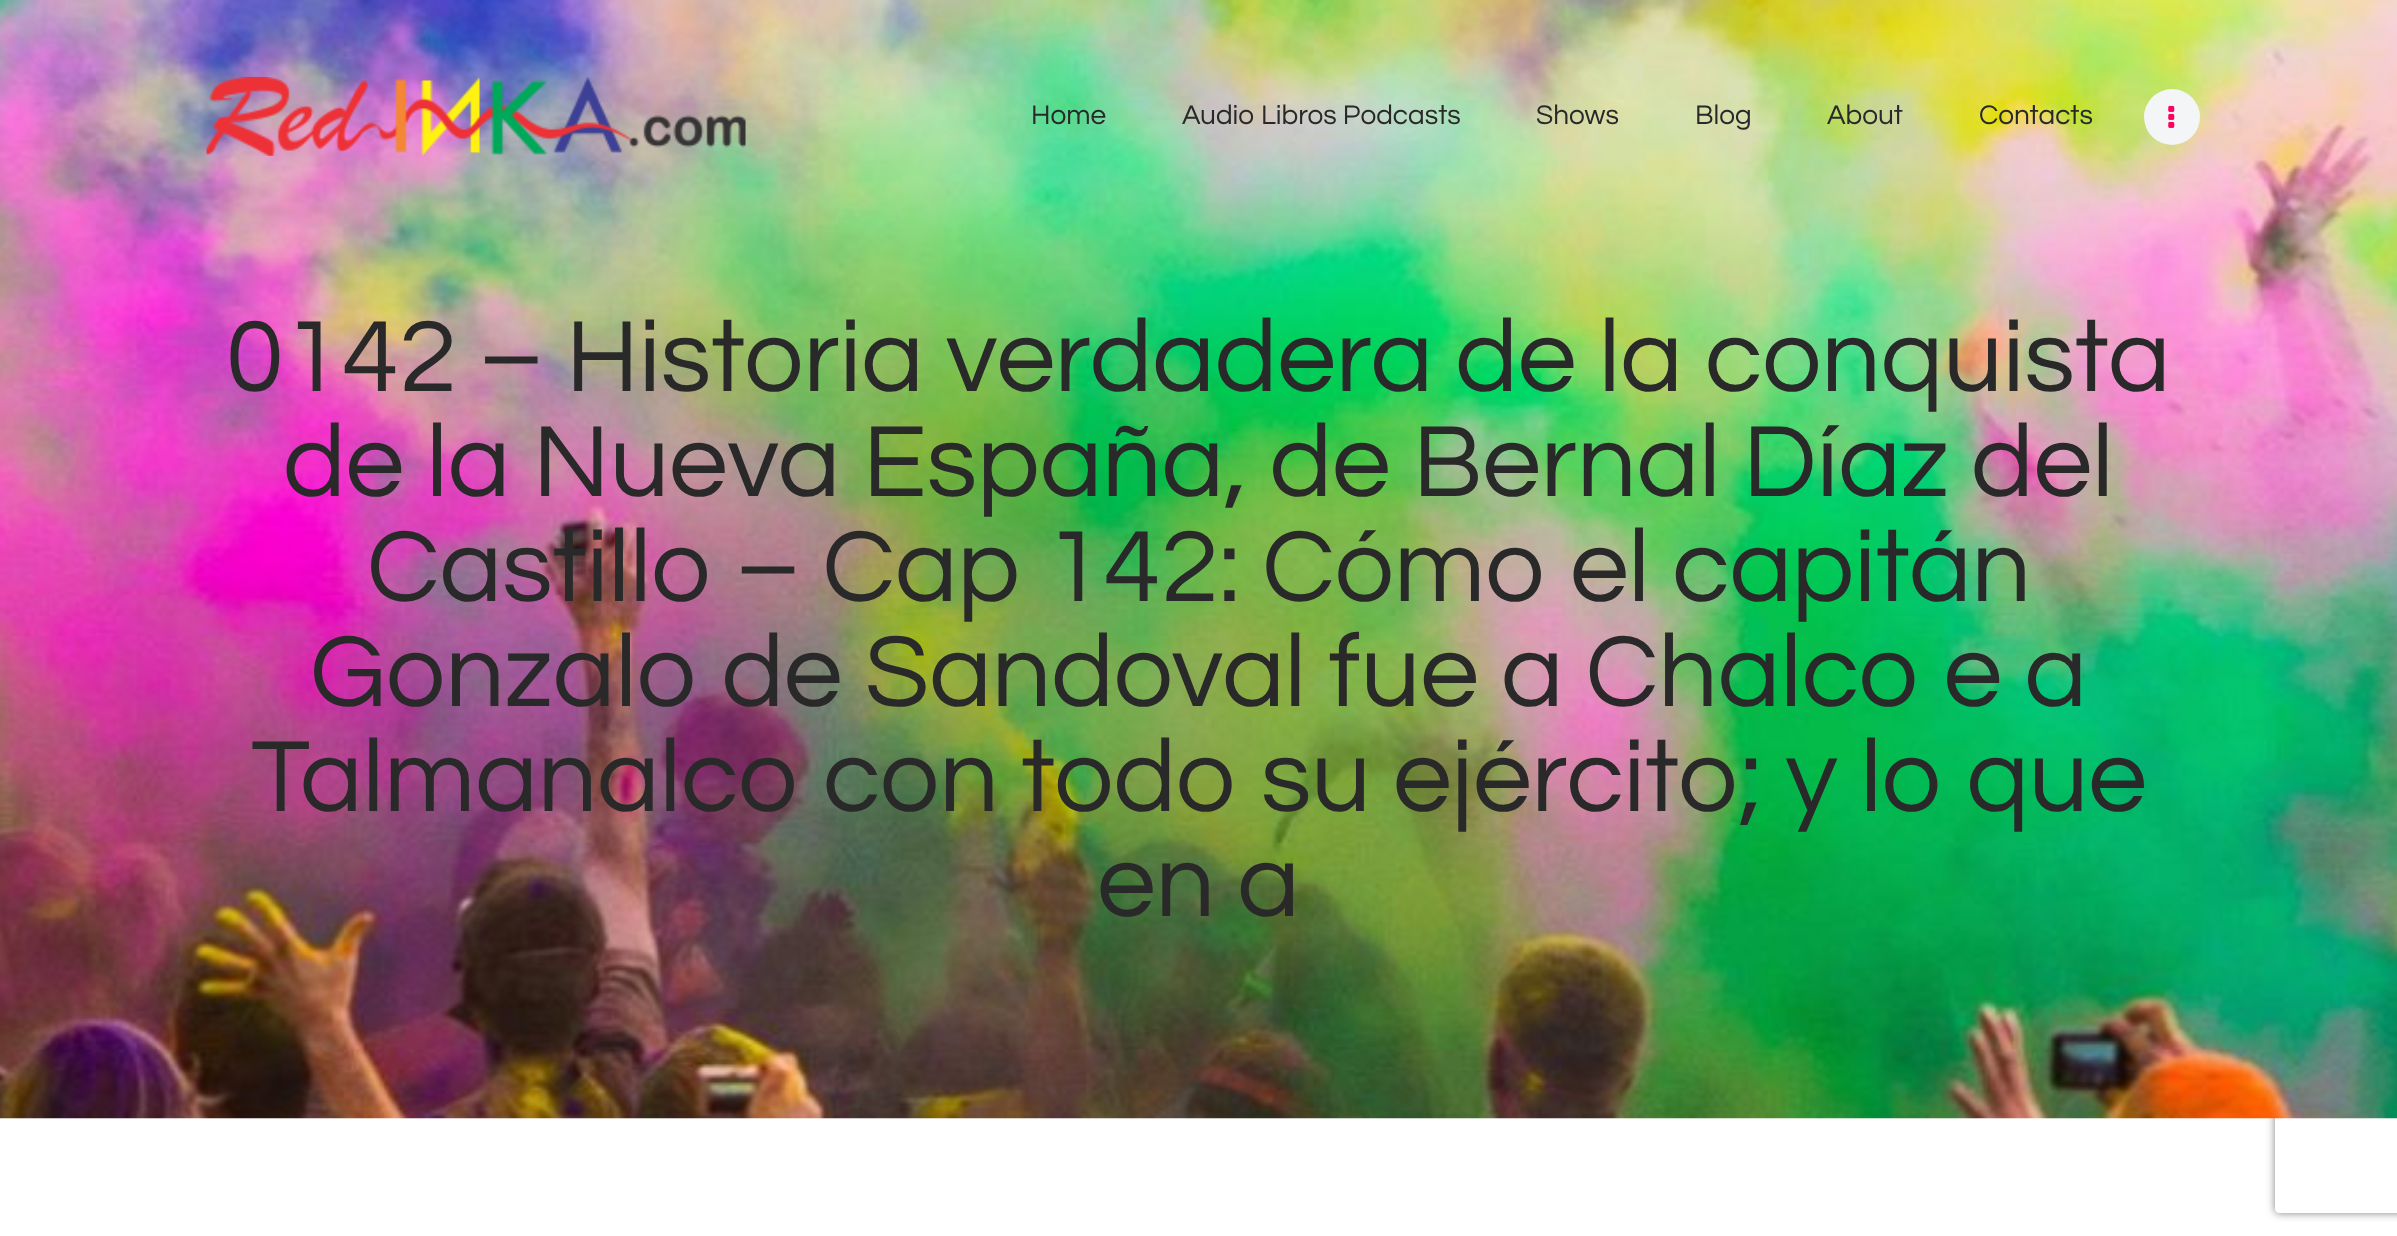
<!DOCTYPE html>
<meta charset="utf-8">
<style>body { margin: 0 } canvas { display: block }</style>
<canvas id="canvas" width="2397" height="1236"></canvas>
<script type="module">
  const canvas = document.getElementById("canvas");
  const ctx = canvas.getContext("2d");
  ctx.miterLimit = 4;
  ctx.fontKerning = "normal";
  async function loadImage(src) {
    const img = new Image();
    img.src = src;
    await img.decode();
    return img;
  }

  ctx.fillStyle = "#ffffff";
  ctx.fillRect(0, 0, 2397, 1236);
  ctx.save();
  ctx.beginPath();
  ctx.moveTo(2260, 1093);
  ctx.lineTo(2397, 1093);
  ctx.lineTo(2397, 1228);
  ctx.lineTo(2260, 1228);
  ctx.closePath();
  ctx.moveTo(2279, 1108);
  ctx.lineTo(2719, 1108);
  ctx.bezierCurveTo(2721, 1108, 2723, 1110, 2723, 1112);
  ctx.lineTo(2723, 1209);
  ctx.bezierCurveTo(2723, 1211, 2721, 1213, 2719, 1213);
  ctx.lineTo(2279, 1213);
  ctx.bezierCurveTo(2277, 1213, 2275, 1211, 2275, 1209);
  ctx.lineTo(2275, 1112);
  ctx.bezierCurveTo(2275, 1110, 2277, 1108, 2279, 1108);
  ctx.closePath();
  ctx.clip("evenodd");
  ctx.fillStyle = "#808080";
  ctx.filter = "blur(4.5px)";
  ctx.beginPath();
  ctx.roundRect(2275, 1108, 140, 105, 4);
  ctx.fill();
  ctx.filter = "none";
  ctx.restore();
  ctx.drawImage(await loadImage("img1.png"), 0, 0, 2397, 1119);
  ctx.drawImage(await loadImage("img2.png"), 206, 77, 540, 79);
  ctx.font = "28px Questrial";
  ctx.fillStyle = "#292929";
  ctx.fillText("Home", 1031, 124);
  ctx.fillText("Audio Libros Podcasts", 1182, 124);
  ctx.fillText("Shows", 1536, 124);
  ctx.fillText("Blog", 1695, 124);
  ctx.fillText("About", 1827, 124);
  ctx.fillText("Contacts", 1979, 124);
  ctx.fillStyle = "#f3f5f7";
  ctx.beginPath();
  ctx.arc(2172, 117, 28, 0, Math.PI * 2);
  ctx.fill();
  ctx.drawImage(await loadImage("img3.png"), 2168, 105, 7, 23);
  ctx.font = "105px Questrial";
  ctx.fillStyle = "#292929";
  ctx.fillText("0142 – Historia verdadera de la conquista", 226, 391);
  ctx.fillText("de la Nueva España, de Bernal Díaz del", 283, 496);
  ctx.fillText("Castillo – Cap 142: Cómo el capitán", 367, 601);
  ctx.fillText("Gonzalo de Sandoval fue a Chalco e a", 310, 706);
  ctx.fillText("Talmanalco con todo su ejército; y lo que", 251, 811);
  ctx.fillText("en a", 1097, 916);
</script>
